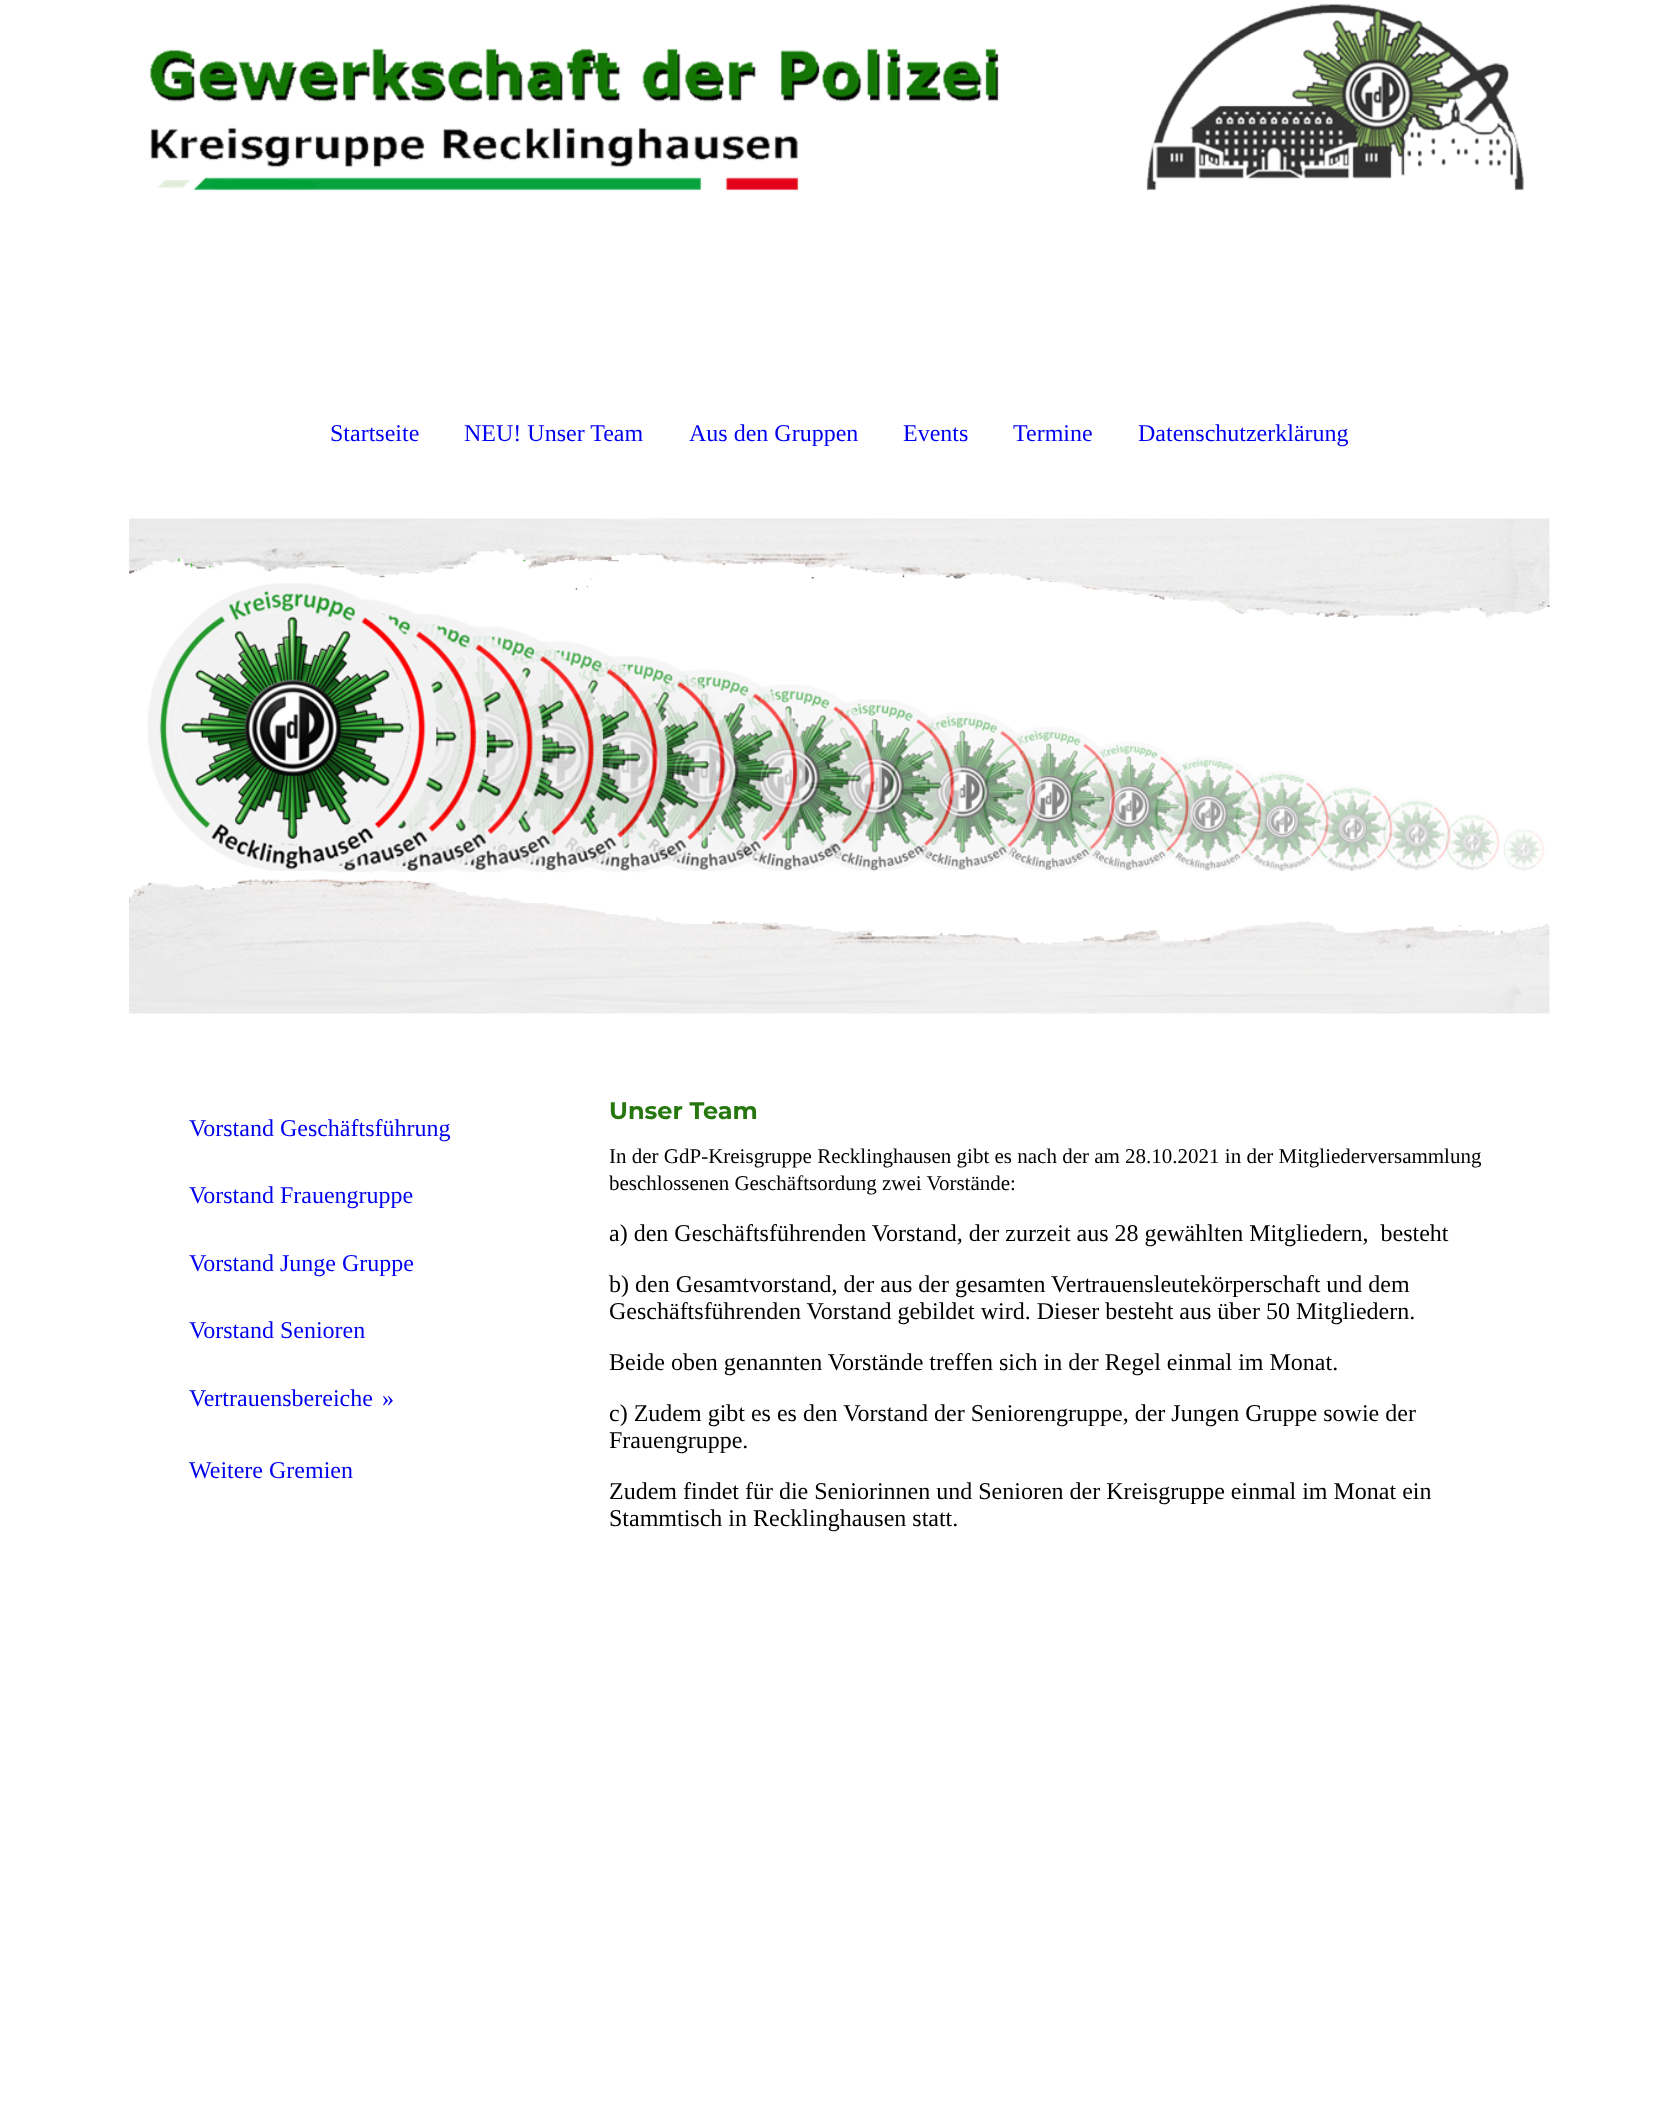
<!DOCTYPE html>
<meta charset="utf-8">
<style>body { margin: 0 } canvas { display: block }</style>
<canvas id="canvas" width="1678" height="2106"></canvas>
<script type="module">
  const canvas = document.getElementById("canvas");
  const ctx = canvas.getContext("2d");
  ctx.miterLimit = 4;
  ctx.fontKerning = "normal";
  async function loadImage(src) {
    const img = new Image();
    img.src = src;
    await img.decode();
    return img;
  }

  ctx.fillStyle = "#ffffff";
  ctx.fillRect(0, 0, 1678, 2106);
  ctx.drawImage(await loadImage("img1.png"), 150, 3, 1374, 188);
  ctx.font = "24px Liberation Serif";
  ctx.fillStyle = "#0000ee";
  ctx.fillText("Startseite", 330, 441);
  ctx.fillText("NEU! Unser Team", 464, 441);
  ctx.fillText("Aus den Gruppen", 689, 441);
  ctx.fillText("Events", 903, 441);
  ctx.fillText("Termine", 1013, 441);
  ctx.fillText("Datenschutzerklärung", 1138, 441);
  ctx.drawImage(await loadImage("img2.png"), 129, 518, 1421, 496);
  ctx.fillText("Vorstand Geschäftsführung", 189, 1136);
  ctx.fillText("Vorstand Frauengruppe", 189, 1203);
  ctx.fillText("Vorstand Junge Gruppe", 189, 1271);
  ctx.fillText("Vorstand Senioren", 189, 1338);
  ctx.fillText("Vertrauensbereiche", 189, 1406);
  ctx.fillText("»", 382, 1406);
  ctx.fillText("Weitere Gremien", 189, 1478);
  ctx.font = "bold 24px Montserrat";
  ctx.fillStyle = "#25770e";
  ctx.fillText("Unser Team", 609, 1119);
  ctx.font = "21px Liberation Serif";
  ctx.fillStyle = "#000000";
  ctx.fillText("In der GdP-Kreisgruppe Recklinghausen gibt es nach der am 28.10.2021 in der Mitgliederversammlung", 609, 1163);
  ctx.fillText("beschlossenen Geschäftsordung zwei Vorstände:", 609, 1190);
  ctx.font = "24px Liberation Serif";
  ctx.fillText("a) den Geschäftsführenden Vorstand, der zurzeit aus 28 gewählten Mitgliedern,  besteht", 609, 1241);
  ctx.fillText("b) den Gesamtvorstand, der aus der gesamten Vertrauensleutekörperschaft und dem", 609, 1292);
  ctx.fillText("Geschäftsführenden Vorstand gebildet wird. Dieser besteht aus über 50 Mitgliedern.", 609, 1319);
  ctx.fillText("Beide oben genannten Vorstände treffen sich in der Regel einmal im Monat.", 609, 1370);
  ctx.fillText("c) Zudem gibt es es den Vorstand der Seniorengruppe, der Jungen Gruppe sowie der", 609, 1421);
  ctx.fillText("Frauengruppe.", 609, 1448);
  ctx.fillText("Zudem findet für die Seniorinnen und Senioren der Kreisgruppe einmal im Monat ein", 609, 1499);
  ctx.fillText("Stammtisch in Recklinghausen statt.", 609, 1526);
</script>
